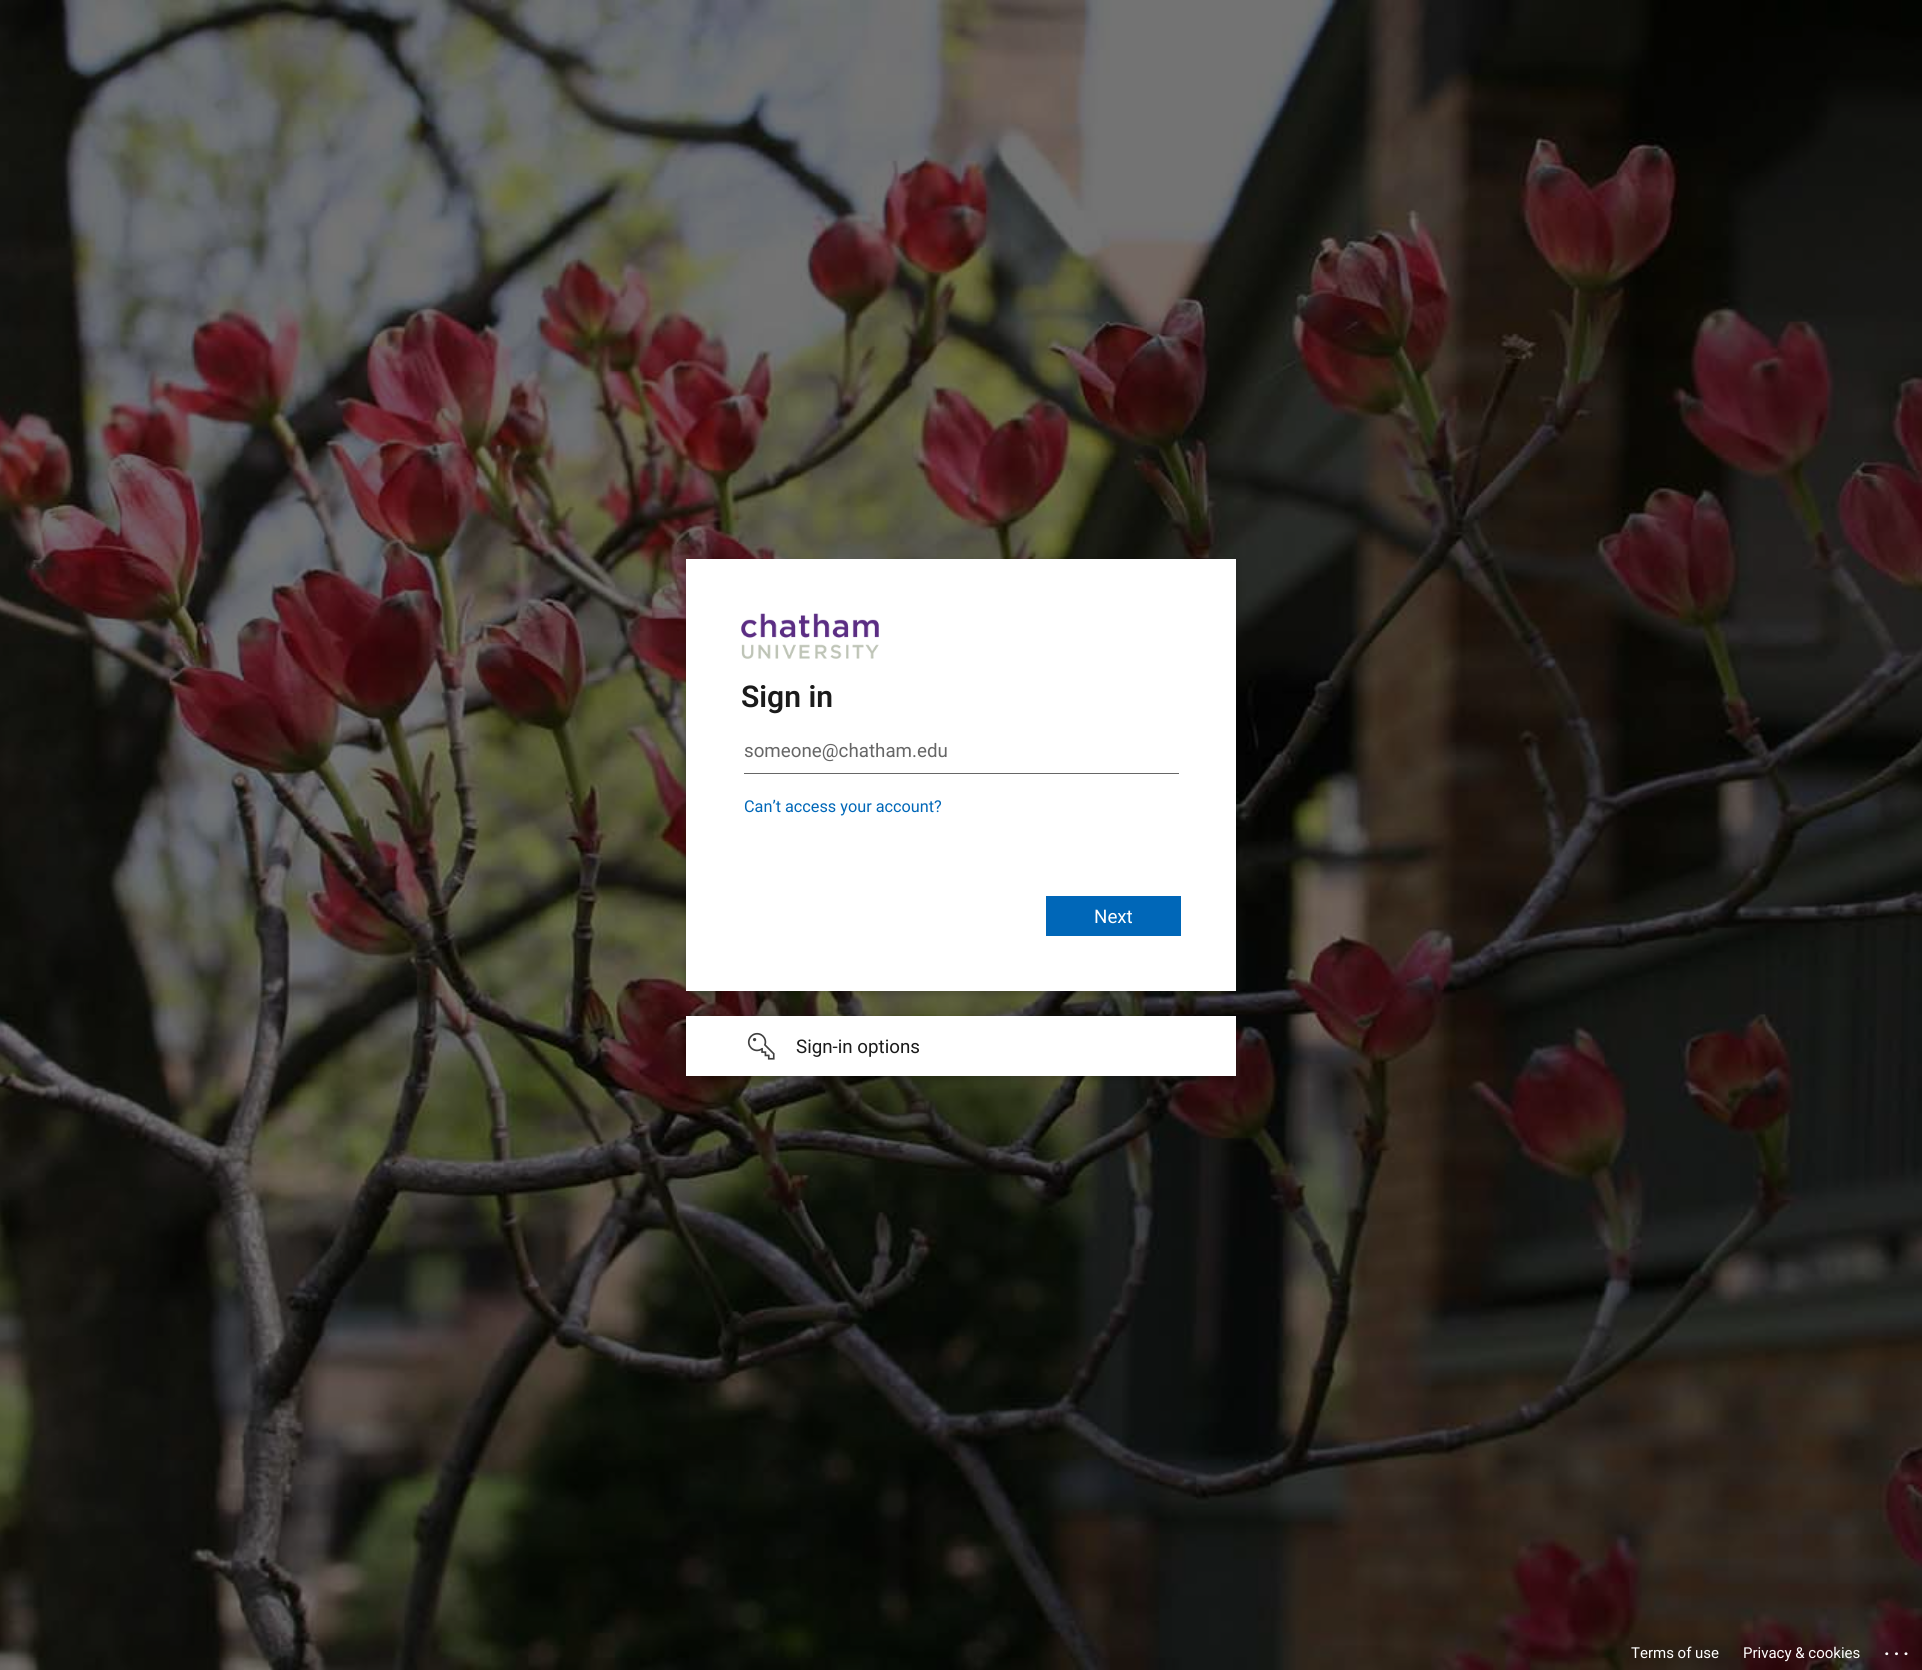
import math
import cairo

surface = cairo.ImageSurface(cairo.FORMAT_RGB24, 1922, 1670)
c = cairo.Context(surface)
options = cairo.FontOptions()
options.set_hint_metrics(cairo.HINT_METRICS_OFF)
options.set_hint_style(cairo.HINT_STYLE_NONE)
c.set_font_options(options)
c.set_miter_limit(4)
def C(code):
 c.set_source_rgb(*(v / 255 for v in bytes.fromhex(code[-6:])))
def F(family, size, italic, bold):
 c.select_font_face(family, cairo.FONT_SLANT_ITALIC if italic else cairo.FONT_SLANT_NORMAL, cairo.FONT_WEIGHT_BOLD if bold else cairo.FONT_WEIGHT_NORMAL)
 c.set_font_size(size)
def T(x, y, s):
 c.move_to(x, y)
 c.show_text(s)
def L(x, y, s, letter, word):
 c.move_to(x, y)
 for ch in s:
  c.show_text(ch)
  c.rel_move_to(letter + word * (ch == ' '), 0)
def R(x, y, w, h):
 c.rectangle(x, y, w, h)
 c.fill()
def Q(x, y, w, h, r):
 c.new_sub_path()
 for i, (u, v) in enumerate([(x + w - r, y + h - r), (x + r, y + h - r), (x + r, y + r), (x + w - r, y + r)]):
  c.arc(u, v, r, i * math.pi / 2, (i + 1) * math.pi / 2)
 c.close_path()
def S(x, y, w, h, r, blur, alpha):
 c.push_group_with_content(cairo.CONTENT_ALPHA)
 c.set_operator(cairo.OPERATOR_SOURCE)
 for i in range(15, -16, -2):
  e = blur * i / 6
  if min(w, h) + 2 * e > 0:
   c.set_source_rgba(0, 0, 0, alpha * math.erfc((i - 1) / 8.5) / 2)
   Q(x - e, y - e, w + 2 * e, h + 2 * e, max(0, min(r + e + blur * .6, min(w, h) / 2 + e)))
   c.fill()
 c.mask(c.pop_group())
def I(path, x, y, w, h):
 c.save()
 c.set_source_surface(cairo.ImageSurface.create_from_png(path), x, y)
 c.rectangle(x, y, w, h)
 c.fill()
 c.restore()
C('ffffff')
c.paint()
I('1.png',0,0,1922,1670)
C('000000')
S(686,561,550,433,0,4,.2)
C('ffffff')
R(686,559,550,432)
I('2.png',741,613,138,46)
F('Roboto SemiBold',30,0,0)
C('1b1b1b')
T(741,707,'Sign in')
C('666666')
R(744,773,435,1)
F('Roboto',18.75,0,0)
T(744,757,'someone@chatham.edu')
F('Roboto',16.25,0,0)
C('0067b8')
T(744,812,'Can’t access your account?')
R(1046,896,135,40)
F('Roboto',18.75,0,0)
C('ffffff')
T(1094,923,'Next')
C('000000')
S(686,1019,550,60,0,4,.2)
C('ffffff')
R(686,1016,550,60)
I('3.png',747,1032,28,28)
C('1b1b1b')
T(796,1053,'Sign-in options')
F('Roboto',15,0,0)
C('ffffff')
T(1631,1658,'Terms of use')
T(1743,1658,'Privacy & cookies')
F('Roboto SemiBold',20,0,0)
L(1884,1655,'...',4,0)
surface.write_to_png('o.png')
